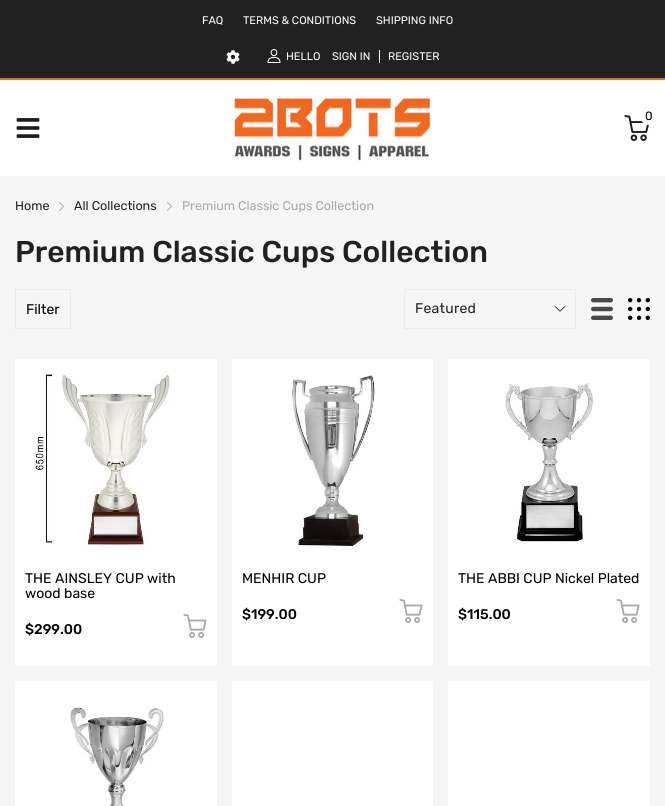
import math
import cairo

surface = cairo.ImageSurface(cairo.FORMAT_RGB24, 665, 806)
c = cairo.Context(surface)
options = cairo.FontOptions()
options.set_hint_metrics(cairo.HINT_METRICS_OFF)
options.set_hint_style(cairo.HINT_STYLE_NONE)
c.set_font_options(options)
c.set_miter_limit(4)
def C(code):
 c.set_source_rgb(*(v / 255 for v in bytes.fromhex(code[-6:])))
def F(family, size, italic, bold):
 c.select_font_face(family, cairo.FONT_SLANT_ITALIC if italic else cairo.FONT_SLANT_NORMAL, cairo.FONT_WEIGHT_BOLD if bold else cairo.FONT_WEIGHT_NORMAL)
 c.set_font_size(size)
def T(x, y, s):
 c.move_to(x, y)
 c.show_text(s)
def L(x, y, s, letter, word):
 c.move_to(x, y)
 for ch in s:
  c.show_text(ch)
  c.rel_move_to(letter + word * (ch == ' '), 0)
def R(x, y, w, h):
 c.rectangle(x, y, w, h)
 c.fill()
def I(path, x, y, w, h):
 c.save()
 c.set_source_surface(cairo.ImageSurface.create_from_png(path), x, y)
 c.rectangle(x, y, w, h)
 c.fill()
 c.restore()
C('f6f6f6')
c.paint()
C('212121')
R(0,0,665,78)
C('f26722')
R(0,78,665,2)
F('Rubik',11,0,0)
C('ffffff')
T(202,24,'FAQ')
T(243,24,'TERMS & CONDITIONS')
T(376,24,'SHIPPING INFO')
I('1.png',226,50,14,14)
I('2.png',267,49,14,14)
T(286,60,'HELLO')
T(332,60,'SIGN IN')
T(388,60,'REGISTER')
R(379,50,1,13)
R(0,80,665,96)
I('3.png',232,95,200,66)
I('4.png',624,115,25,26)
c.arc(649,116,9,0,2 * math.pi)
c.fill()
F('Rubik',12,0,0)
C('000000')
T(645,120,'0')
I('5.png',16,118,24,20)
F('Rubik',12.6,0,0)
C('212121')
T(15,210,'Home')
I('6.png',59,202,5,9)
T(74,210,'All Collections')
I('6.png',167,202,5,9)
C('a9a9a9')
T(182,210,'Premium Classic Cups Collection')
F('Rubik Medium',30,0,0)
C('212121')
T(15,262,'Premium Classic Cups Collection')
c.rectangle(15.5,289.5,55,39)
C('ebebeb')
c.set_line_width(1)
c.stroke()
F('Rubik',14,0,0)
C('000000')
T(26,314,'Filter')
c.rectangle(404.5,289.5,171,39)
C('ebebeb')
c.stroke()
C('212121')
L(415,313,'Featured',.25,0)
I('7.png',555,306,10,6)
I('8.png',591,298,22,22)
I('9.png',628,298,22,22)
C('ffffff')
R(15,359,202,307)
I('10.png',35,374,135,174)
C('000000')
T(25,583,'THE AINSLEY CUP with')
T(25,598,'wood base')
F('Rubik Medium',14,0,0)
T(25,634,'$299.00')
I('11.png',183,614,24,24)
C('ffffff')
R(232,359,201,307)
I('12.png',292,375,83,172)
F('Rubik',14,0,0)
C('000000')
T(242,583,'MENHIR CUP')
F('Rubik Medium',14,0,0)
T(242,619,'$199.00')
I('11.png',399,599,24,24)
C('ffffff')
R(448,359,202,307)
I('13.png',505,383,88,159)
F('Rubik',14,0,0)
C('000000')
T(458,583,'THE ABBI CUP Nickel Plated')
F('Rubik Medium',14,0,0)
T(458,619,'$115.00')
I('11.png',616,599,24,24)
C('ffffff')
R(15,681,202,125)
I('14.png',70,705,99,101)
R(232,681,201,125)
R(448,681,202,125)
surface.write_to_png('o.png')
